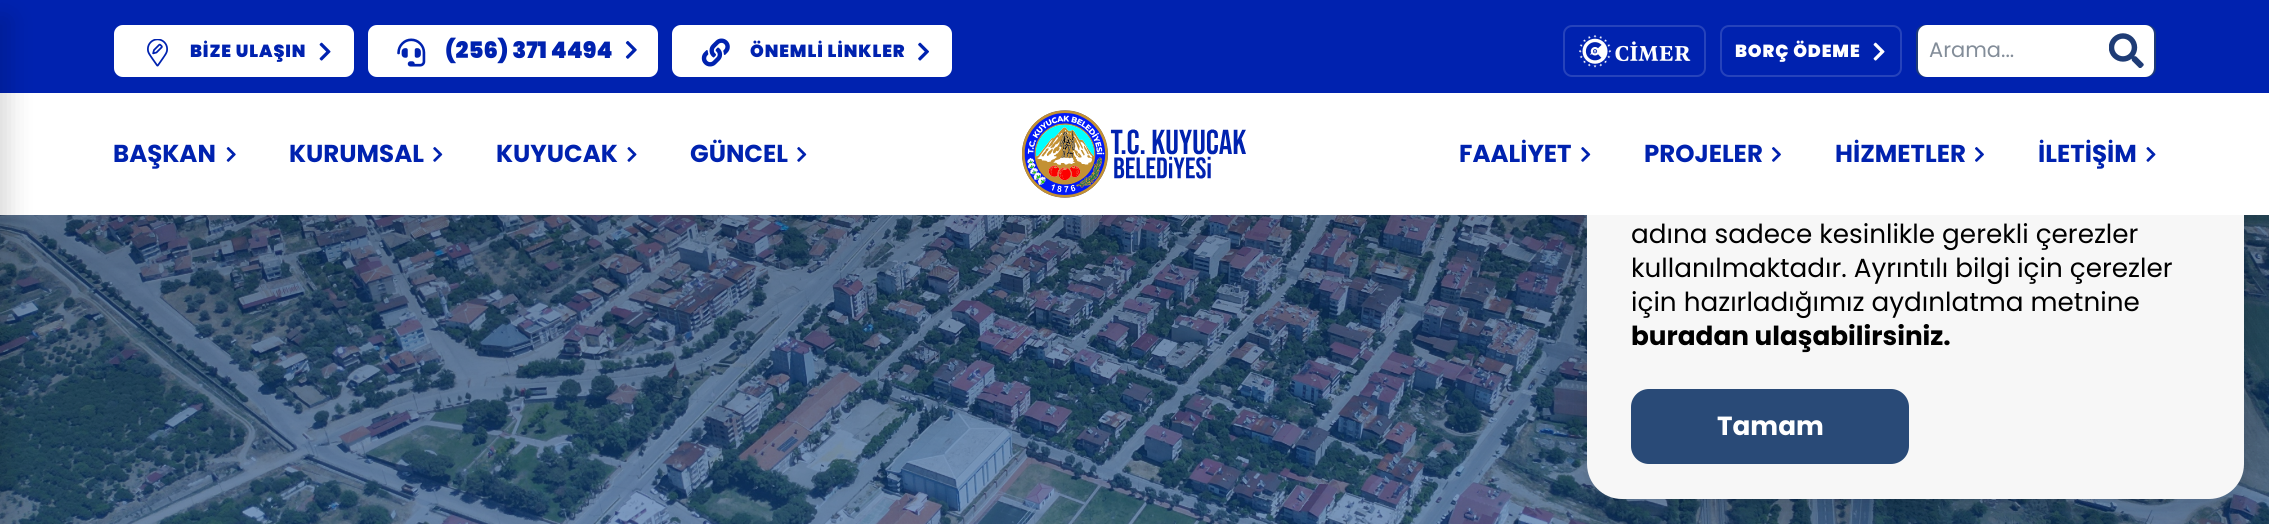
import math
import cairo

surface = cairo.ImageSurface(cairo.FORMAT_RGB24, 2269, 524)
c = cairo.Context(surface)
options = cairo.FontOptions()
options.set_hint_metrics(cairo.HINT_METRICS_OFF)
options.set_hint_style(cairo.HINT_STYLE_NONE)
c.set_font_options(options)
c.set_miter_limit(4)
def C(code):
 c.set_source_rgb(*(v / 255 for v in bytes.fromhex(code[-6:])))
def F(family, size, italic, bold):
 c.select_font_face(family, cairo.FONT_SLANT_ITALIC if italic else cairo.FONT_SLANT_NORMAL, cairo.FONT_WEIGHT_BOLD if bold else cairo.FONT_WEIGHT_NORMAL)
 c.set_font_size(size)
def T(x, y, s):
 c.move_to(x, y)
 c.show_text(s)
def L(x, y, s, letter, word):
 c.move_to(x, y)
 for ch in s:
  c.show_text(ch)
  c.rel_move_to(letter + word * (ch == ' '), 0)
def R(x, y, w, h):
 c.rectangle(x, y, w, h)
 c.fill()
def Q(x, y, w, h, r):
 c.new_sub_path()
 for i, (u, v) in enumerate([(x + w - r, y + h - r), (x + r, y + h - r), (x + r, y + r), (x + w - r, y + r)]):
  c.arc(u, v, r, i * math.pi / 2, (i + 1) * math.pi / 2)
 c.close_path()
def S(x, y, w, h, r, blur, alpha):
 c.push_group_with_content(cairo.CONTENT_ALPHA)
 c.set_operator(cairo.OPERATOR_SOURCE)
 for i in range(15, -16, -2):
  e = blur * i / 6
  if min(w, h) + 2 * e > 0:
   c.set_source_rgba(0, 0, 0, alpha * math.erfc((i - 1) / 8.5) / 2)
   Q(x - e, y - e, w + 2 * e, h + 2 * e, max(0, min(r + e + blur * .6, min(w, h) / 2 + e)))
   c.fill()
 c.mask(c.pop_group())
def I(path, x, y, w, h):
 c.save()
 c.set_source_surface(cairo.ImageSurface.create_from_png(path), x, y)
 c.rectangle(x, y, w, h)
 c.fill()
 c.restore()
C('1553a4')
c.paint()
I('15.png',0,215,2269,309)
gradient = cairo.LinearGradient(1135,0,1135,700)
gradient.add_color_stop_rgba(0,0,0,0,.35)
gradient.add_color_stop_rgba(1,0,0,0,0)
c.set_source(gradient)
R(0,215,2269,309)
C('020203')
S(1587,86,657,430,35,26,.2)
C('f7f7f7')
Q(1587,68,657,431,35)
c.fill()
C('0022af')
R(0,0,2269,93)
C('ffffff')
R(0,93,2269,122)
C('000000')
S(-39,18,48,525,0,13,.15)
C('ffffff')
Q(114,25,240,52,9)
c.fill()
Q(115,26,238,50,8)
c.set_source_rgba(1,1,1,0.15)
c.stroke()
I('1.png',147,39,21,28)
F('Poppins Black',17.5,0,0)
C('0022af')
L(190,57,'BİZE ULAŞIN',.9,0)
I('2.png',319,42,12,19)
C('ffffff')
Q(368,25,290,52,9)
c.fill()
Q(369,26,288,50,8)
c.set_source_rgba(1,1,1,0.15)
c.stroke()
I('3.png',397,38,29,29)
F('Poppins Black',22.75,0,0)
C('0022af')
T(445,58,'(256) 371 4494')
I('4.png',625,40,12,19)
C('ffffff')
Q(672,25,280,52,9)
c.fill()
Q(673,26,278,50,8)
c.set_source_rgba(1,1,1,0.15)
c.stroke()
I('5.png',701,38,29,29)
F('Poppins Black',17.5,0,0)
C('0022af')
L(750,57,'ÖNEMLİ LİNKLER',.9,0)
I('6.png',918,42,11,19)
Q(1564,26,141,50,8)
C('2643bb')
c.stroke()
I('7.png',1579,35,112,33)
Q(1721,26,180,50,8)
c.stroke()
C('ffffff')
L(1735,57,'BORÇ ÖDEME',.9,0)
I('8.png',1873,42,12,19)
Q(1917,26,238,50,8)
C('1f3c75')
c.stroke()
C('ffffff')
Q(1918,25,236,52,9)
c.fill()
I('9.png',2109,33,35,35)
F('Poppins',21,0,0)
C('838d99')
T(1929,57,'Arama...')
F('Poppins',24.5,0,1)
C('0022af')
T(113,162,'BAŞKAN')
I('10.png',226,147,10,15)
T(289,162,'KURUMSAL')
I('11.png',433,147,10,15)
T(496,162,'KUYUCAK')
I('12.png',627,147,10,15)
T(690,162,'GÜNCEL')
I('11.png',797,147,10,15)
I('13.png',1022,110,224,88)
T(1459,162,'FAALİYET')
I('11.png',1581,147,10,15)
T(1644,162,'PROJELER')
I('14.png',1772,147,9,15)
T(1835,162,'HİZMETLER')
I('14.png',1975,147,9,15)
T(2038,162,'İLETİŞİM')
I('12.png',2146,147,10,15)
F('Poppins',26.25,0,0)
C('000000')
T(1631,243,'adına sadece kesinlikle gerekli çerezler')
T(1631,277,'kullanılmaktadır. Ayrıntılı bilgi için çerezler')
T(1631,311,'için hazırladığımız aydınlatma metnine')
F('Poppins',26.25,0,1)
T(1631,345,'buradan ulaşabilirsiniz.')
C('294a77')
Q(1631,389,278,75,18)
c.fill()
C('ffffff')
T(1717,435,'Tamam')
surface.write_to_png('o.png')
